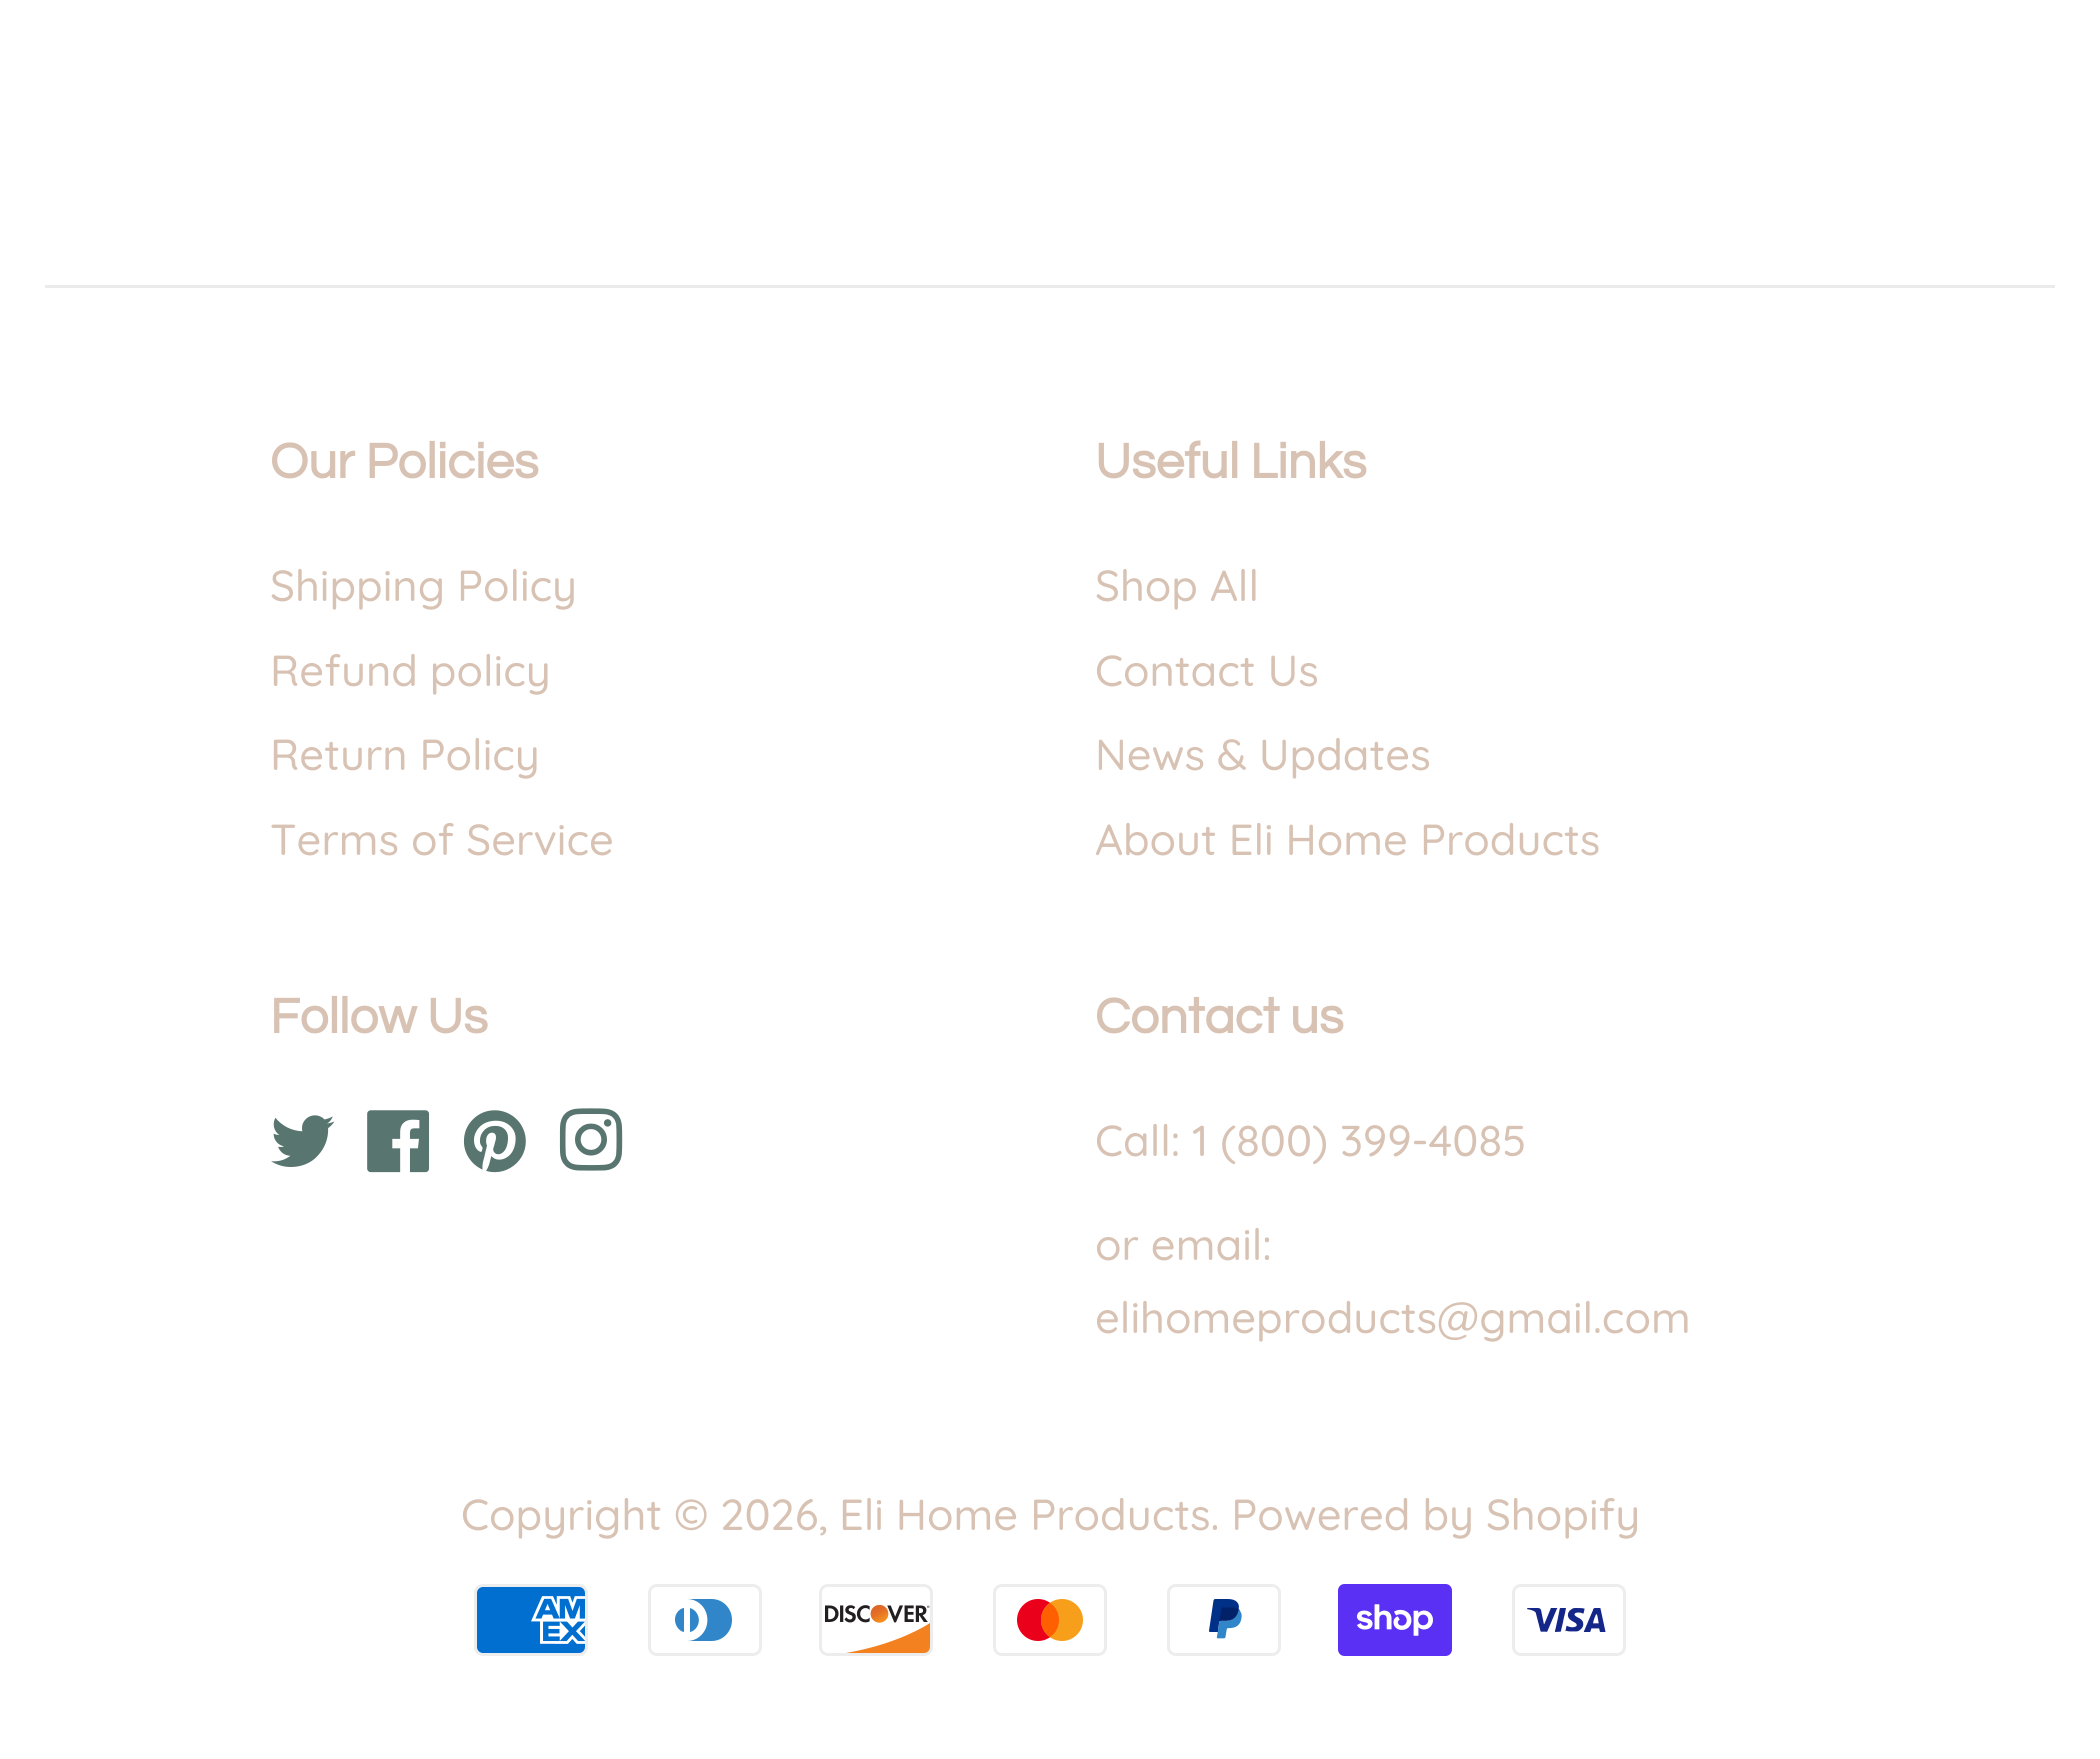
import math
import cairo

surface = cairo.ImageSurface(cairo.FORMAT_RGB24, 2100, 1759)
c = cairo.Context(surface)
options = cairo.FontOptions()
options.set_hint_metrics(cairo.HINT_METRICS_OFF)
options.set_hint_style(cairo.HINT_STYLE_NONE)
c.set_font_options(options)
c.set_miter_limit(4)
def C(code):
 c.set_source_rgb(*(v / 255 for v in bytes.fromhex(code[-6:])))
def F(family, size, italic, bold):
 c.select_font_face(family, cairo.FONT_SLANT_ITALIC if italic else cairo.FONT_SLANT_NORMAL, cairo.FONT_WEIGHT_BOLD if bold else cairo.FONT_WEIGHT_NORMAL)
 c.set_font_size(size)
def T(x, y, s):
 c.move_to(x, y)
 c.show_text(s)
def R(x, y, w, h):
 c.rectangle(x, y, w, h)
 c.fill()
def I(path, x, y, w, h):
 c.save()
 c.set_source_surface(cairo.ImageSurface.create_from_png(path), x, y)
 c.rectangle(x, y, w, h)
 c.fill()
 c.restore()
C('ffffff')
c.paint()
C('ebebeb')
R(45,285,2010,3)
F('Questrial',51,0,1)
C('d8c2b3')
T(270,478,'Our Policies')
F('Quicksand Medium',43.4,0,0)
T(270,601,'Shipping Policy')
T(270,686,'Refund policy')
T(270,770,'Return Policy')
T(270,855,'Terms of Service')
F('Questrial',51,0,1)
T(1095,478,'Useful Links')
F('Quicksand Medium',43.4,0,0)
T(1095,601,'Shop All')
T(1095,686,'Contact Us')
T(1095,770,'News & Updates')
T(1095,855,'About Eli Home Products')
F('Questrial',51,0,1)
T(270,1033,'Follow Us')
I('1.png',271,1115,64,52)
I('2.png',367,1110,63,63)
I('3.png',463,1110,63,63)
I('4.png',559,1108,64,63)
T(1095,1033,'Contact us')
F('Quicksand Medium',43.4,0,0)
T(1095,1156,'Call: 1 (800) 399-4085')
T(1095,1260,'or email:')
T(1095,1333,'elihomeproducts@gmail.com')
T(461,1530,'Copyright © 2026,')
T(839,1530,'Eli Home Products. Powered by Shopify')
I('5.png',474,1584,114,72)
I('6.png',648,1584,114,72)
I('7.png',819,1584,114,72)
I('8.png',993,1584,114,72)
I('9.png',1167,1584,114,72)
I('10.png',1338,1584,114,72)
I('11.png',1512,1584,114,72)
surface.write_to_png('o.png')
